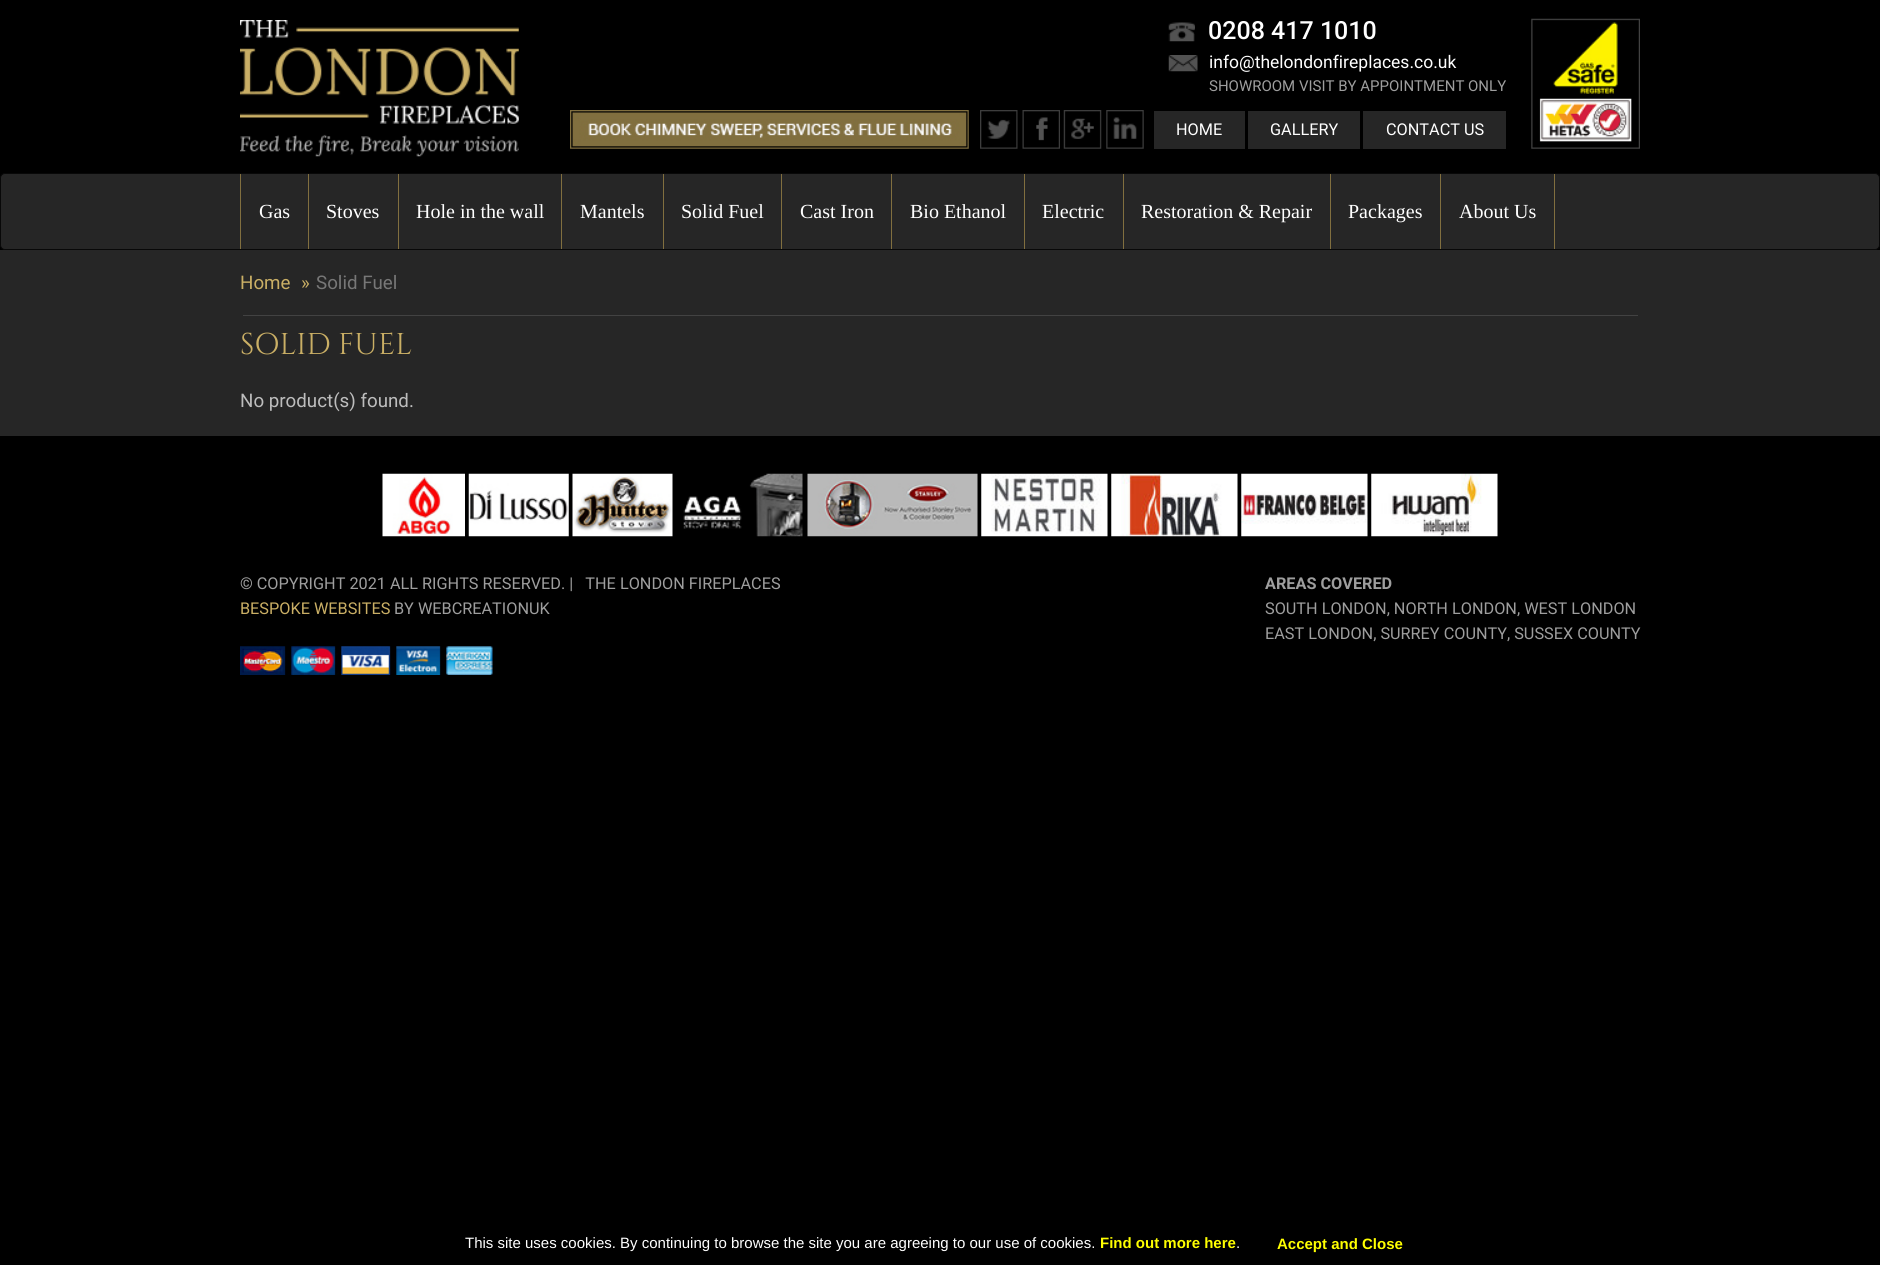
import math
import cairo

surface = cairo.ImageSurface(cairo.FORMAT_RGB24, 1880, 1265)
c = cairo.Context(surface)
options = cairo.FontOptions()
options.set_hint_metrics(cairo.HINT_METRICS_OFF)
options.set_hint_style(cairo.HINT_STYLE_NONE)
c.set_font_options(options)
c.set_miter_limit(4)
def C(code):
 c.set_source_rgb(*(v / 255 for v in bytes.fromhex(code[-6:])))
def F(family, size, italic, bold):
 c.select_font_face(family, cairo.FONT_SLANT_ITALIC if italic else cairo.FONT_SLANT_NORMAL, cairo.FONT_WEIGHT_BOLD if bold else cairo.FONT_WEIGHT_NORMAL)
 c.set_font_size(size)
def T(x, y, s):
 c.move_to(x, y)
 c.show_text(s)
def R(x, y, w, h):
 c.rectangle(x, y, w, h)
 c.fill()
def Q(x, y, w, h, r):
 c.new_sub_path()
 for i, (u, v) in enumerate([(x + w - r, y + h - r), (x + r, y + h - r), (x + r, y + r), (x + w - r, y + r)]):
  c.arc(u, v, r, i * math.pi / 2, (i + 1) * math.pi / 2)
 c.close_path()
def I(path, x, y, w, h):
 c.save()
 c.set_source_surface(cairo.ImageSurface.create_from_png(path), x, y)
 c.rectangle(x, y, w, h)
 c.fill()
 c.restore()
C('000000')
c.paint()
I('1.png',240,20,279,137)
I('2.png',1168,22,27,20)
F('Roboto Medium',25,0,0)
C('ffffff')
T(1208,39,'0208 417 1010')
I('3.png',1168,55,30,17)
F('Roboto',17.5,0,0)
T(1209,68,'info@thelondonfireplaces.co.uk')
F('Roboto',15,0,0)
C('9e9e9e')
T(1209,91,'SHOWROOM VISIT BY APPOINTMENT ONLY')
I('4.png',570,110,399,39)
I('5.png',980,110,38,39)
I('6.png',1022,110,38,39)
I('7.png',1063,110,39,39)
I('8.png',1106,110,38,39)
C('262626')
R(1154,111,91,38)
F('Roboto',16.25,0,0)
C('ffffff')
T(1176,135,'HOME')
C('262626')
R(1248,111,112,38)
C('ffffff')
T(1270,135,'GALLERY')
C('262626')
R(1363,111,143,38)
C('ffffff')
T(1386,135,'CONTACT US')
I('9.png',1531,18,109,131)
C('262626')
Q(.5,173.5,1879,76,4.5)
c.fill_preserve()
C('080808')
c.set_line_width(1)
c.stroke()
C('816f3f')
R(240,174,1,75)
F('Liberation Serif',20,0,0)
C('ffffff')
T(259,218,'Gas')
C('816f3f')
R(308,174,1,75)
C('ffffff')
T(326,218,'Stoves')
C('816f3f')
R(398,174,1,75)
C('ffffff')
T(416,218,'Hole in the wall')
C('816f3f')
R(561,174,1,75)
C('ffffff')
T(580,218,'Mantels')
C('816f3f')
R(663,174,1,75)
C('ffffff')
T(681,218,'Solid Fuel')
C('816f3f')
R(781,174,1,75)
C('ffffff')
T(800,218,'Cast Iron')
C('816f3f')
R(891,174,1,75)
C('ffffff')
T(910,218,'Bio Ethanol')
C('816f3f')
R(1024,174,1,75)
C('ffffff')
T(1042,218,'Electric')
C('816f3f')
R(1123,174,1,75)
C('ffffff')
T(1141,218,'Restoration & Repair')
C('816f3f')
R(1330,174,1,75)
C('ffffff')
T(1348,218,'Packages')
C('816f3f')
R(1554,174,1,75)
R(1440,174,1,75)
C('ffffff')
T(1459,218,'About Us')
C('262626')
R(0,250,1880,186)
C('424242')
R(243,315,1395,1)
F('Roboto',18.75,0,0)
C('caaf65')
T(240,289,'Home')
T(301,289,'»')
C('777777')
T(316,289,'Solid Fuel')
F('Cinzel',30,0,0)
C('caaf65')
T(240,354,'SOLID FUEL')
F('Roboto',18.75,0,0)
C('bdbdbd')
T(240,407,'No product(s) found.')
I('10.png',382,473,83,64)
I('11.png',468,473,101,64)
I('12.png',572,473,101,64)
I('13.png',683,473,120,64)
I('14.png',807,473,171,64)
I('15.png',981,473,127,64)
I('16.png',1111,473,127,64)
I('17.png',1241,473,127,64)
I('18.png',1371,473,127,64)
F('Roboto',16.25,0,0)
C('9e9e9e')
T(240,589,'© COPYRIGHT 2021 ALL RIGHTS RESERVED. |   THE LONDON FIREPLACES')
C('caaf65')
T(240,614,'BESPOKE WEBSITES')
C('9e9e9e')
T(394,614,'BY WEBCREATIONUK')
I('19.png',240,646,253,29)
F('Roboto',16.25,0,1)
T(1265,589,'AREAS COVERED')
F('Roboto',16.25,0,0)
T(1265,614,'SOUTH LONDON, NORTH LONDON, WEST LONDON')
T(1265,639,'EAST LONDON, SURREY COUNTY, SUSSEX COUNTY')
F('Liberation Sans',15,0,0)
C('ffffff')
T(465,1248,'This site uses cookies. By continuing to browse the site you are agreeing to our use of cookies.')
F('Liberation Sans',15,0,1)
C('ffff00')
T(1100,1248,'Find out more here')
F('Liberation Sans',15,0,0)
C('ffffff')
T(1236,1248,'.')
F('Liberation Sans',15,0,1)
C('ffff00')
T(1277,1249,'Accept and Close')
surface.write_to_png('o.png')
